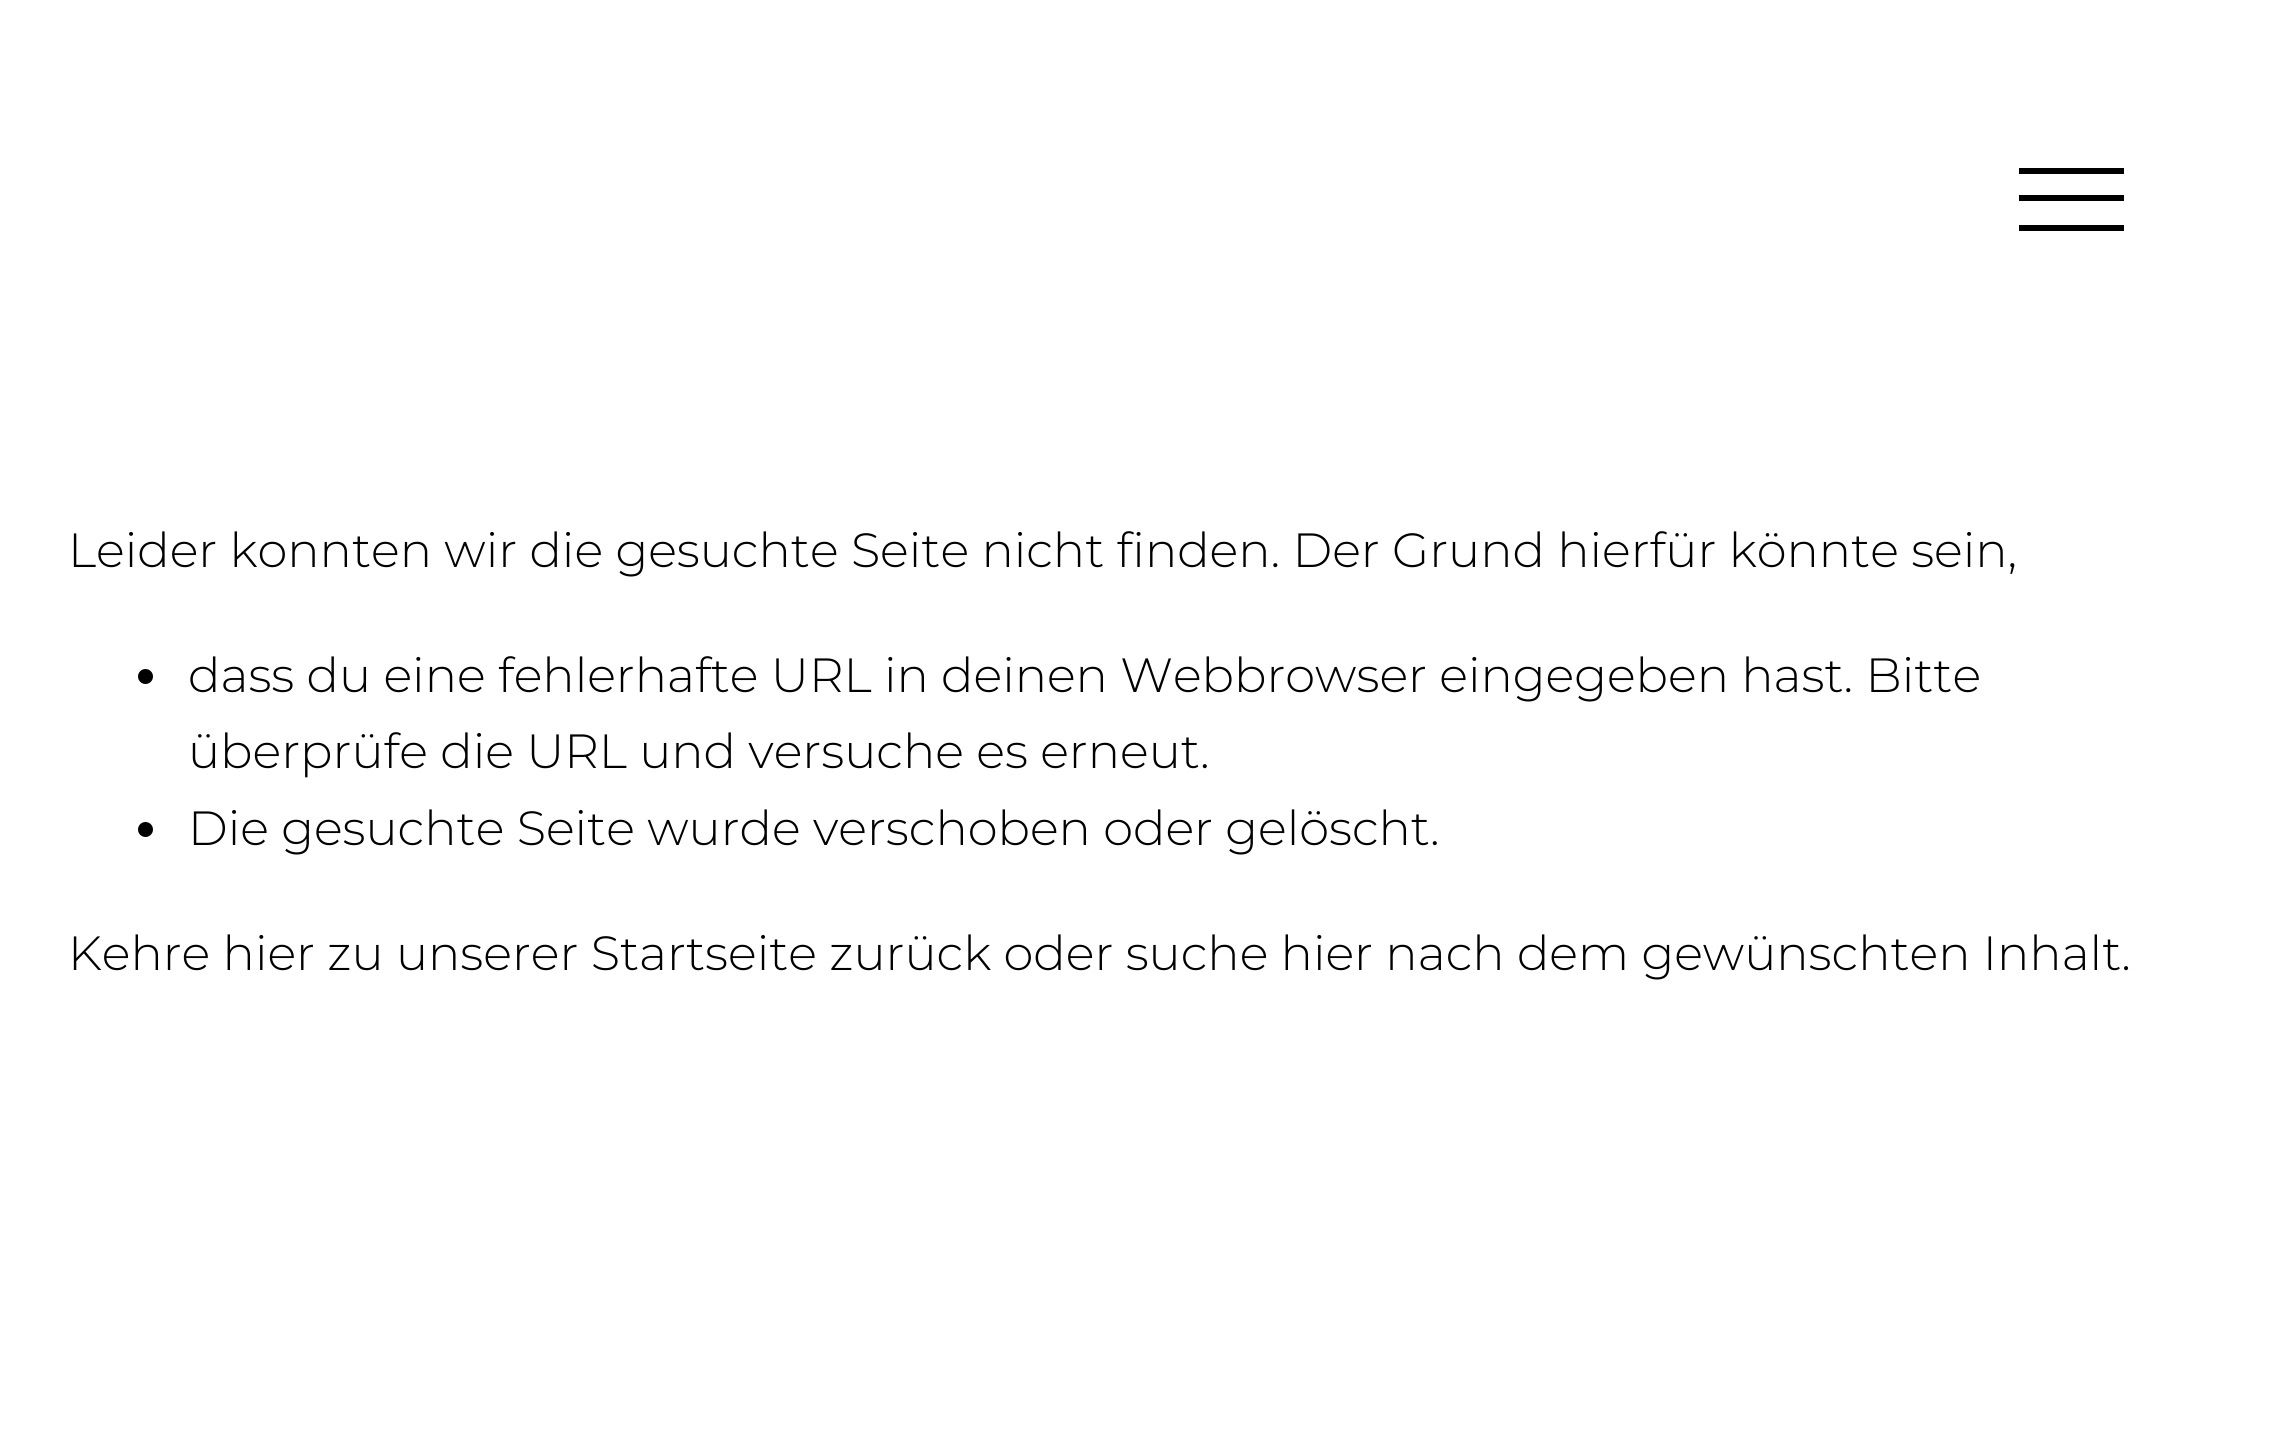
import math
import cairo

surface = cairo.ImageSurface(cairo.FORMAT_RGB24, 2280, 1450)
c = cairo.Context(surface)
options = cairo.FontOptions()
options.set_hint_metrics(cairo.HINT_METRICS_OFF)
options.set_hint_style(cairo.HINT_STYLE_NONE)
c.set_font_options(options)
c.set_miter_limit(4)
def C(code):
 c.set_source_rgb(*(v / 255 for v in bytes.fromhex(code[-6:])))
def F(family, size, italic, bold):
 c.select_font_face(family, cairo.FONT_SLANT_ITALIC if italic else cairo.FONT_SLANT_NORMAL, cairo.FONT_WEIGHT_BOLD if bold else cairo.FONT_WEIGHT_NORMAL)
 c.set_font_size(size)
def T(x, y, s):
 c.move_to(x, y)
 c.show_text(s)
def R(x, y, w, h):
 c.rectangle(x, y, w, h)
 c.fill()
C('ffffff')
c.paint()
C('000000')
R(2019,168,105,6)
R(2019,195,105,6)
R(2019,225,105,6)
F('Montserrat Light',48,0,0)
T(68,567,'Leider konnten wir die gesuchte Seite nicht finden. Der Grund hierfür könnte sein,')
c.new_path()
c.arc(145.5,676.5,7.5,0,2 * math.pi)
c.fill()
T(188,692,'dass du eine fehlerhafte URL in deinen Webbrowser eingegeben hast. Bitte')
T(188,768,'überprüfe die URL und versuche es erneut.')
c.new_path()
c.arc(145.5,829.5,7.5,0,2 * math.pi)
c.fill()
T(188,845,'Die gesuchte Seite wurde verschoben oder gelöscht.')
T(68,970,'Kehre hier zu unserer Startseite zurück oder suche hier nach dem gewünschten Inhalt.')
surface.write_to_png('o.png')
